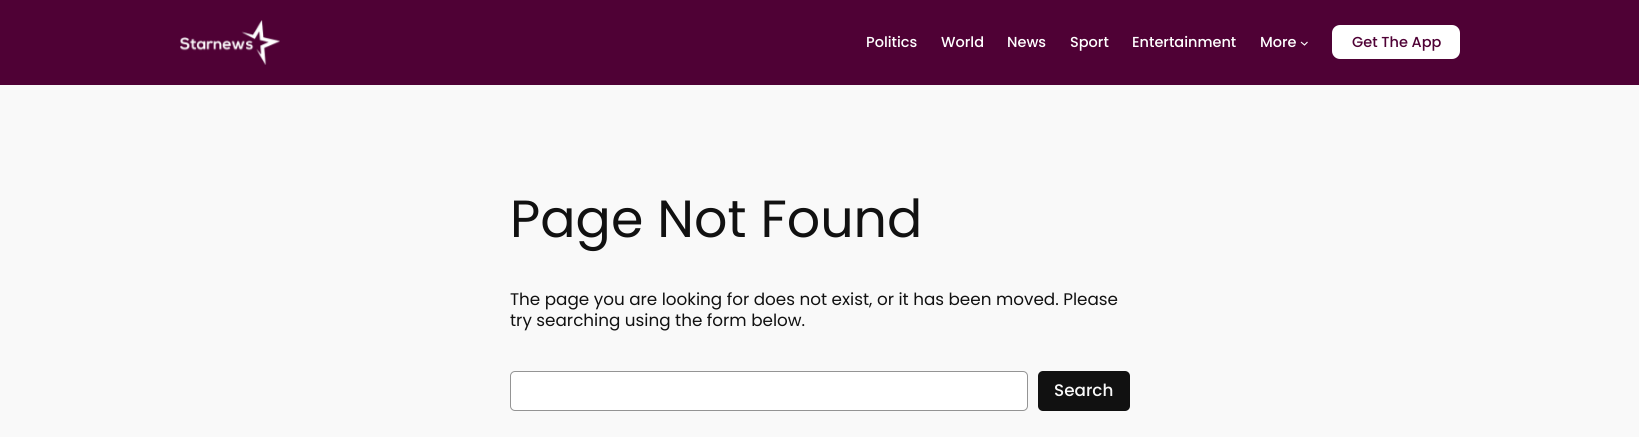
import math
import cairo

surface = cairo.ImageSurface(cairo.FORMAT_RGB24, 1639, 437)
c = cairo.Context(surface)
options = cairo.FontOptions()
options.set_hint_metrics(cairo.HINT_METRICS_OFF)
options.set_hint_style(cairo.HINT_STYLE_NONE)
c.set_font_options(options)
c.set_miter_limit(4)
def C(code):
 c.set_source_rgb(*(v / 255 for v in bytes.fromhex(code[-6:])))
def F(family, size, italic, bold):
 c.select_font_face(family, cairo.FONT_SLANT_ITALIC if italic else cairo.FONT_SLANT_NORMAL, cairo.FONT_WEIGHT_BOLD if bold else cairo.FONT_WEIGHT_NORMAL)
 c.set_font_size(size)
def T(x, y, s):
 c.move_to(x, y)
 c.show_text(s)
def R(x, y, w, h):
 c.rectangle(x, y, w, h)
 c.fill()
def Q(x, y, w, h, r):
 c.new_sub_path()
 for i, (u, v) in enumerate([(x + w - r, y + h - r), (x + r, y + h - r), (x + r, y + r), (x + w - r, y + r)]):
  c.arc(u, v, r, i * math.pi / 2, (i + 1) * math.pi / 2)
 c.close_path()
def I(path, x, y, w, h):
 c.save()
 c.set_source_surface(cairo.ImageSurface.create_from_png(path), x, y)
 c.rectangle(x, y, w, h)
 c.fill()
 c.restore()
C('f9f9f9')
c.paint()
C('4f0135')
R(0,0,1639,85)
I('1.png',180,20,100,45)
F('Poppins Medium',14.5,0,0)
C('ffffff')
T(866,47,'Politics')
T(941,47,'World')
T(1007,47,'News')
T(1070,47,'Sport')
T(1132,47,'Entertainment')
T(1260,47,'More')
c.new_path()
c.move_to(1301,42)
c.line_to(1304.5,45)
c.line_to(1307.5,42)
c.set_line_width(1.1)
c.stroke()
Q(1332,25,128,34,8)
c.fill()
C('4f0135')
T(1352,47,'Get The App')
F('Poppins',52.25,0,0)
C('111111')
T(510,237,'Page Not Found')
F('Poppins',16.8,0,0)
T(510,305,'The page you are looking for does not exist, or it has been moved. Please')
T(510,326,'try searching using the form below.')
C('ffffff')
Q(510.5,371.5,517,39,4.5)
c.fill_preserve()
C('949494')
c.set_line_width(1)
c.stroke()
C('111111')
Q(1038,371,92,40,5)
c.fill()
F('Poppins Medium',16.8,0,0)
C('f9f9f9')
T(1054,396,'Search')
surface.write_to_png('o.png')
